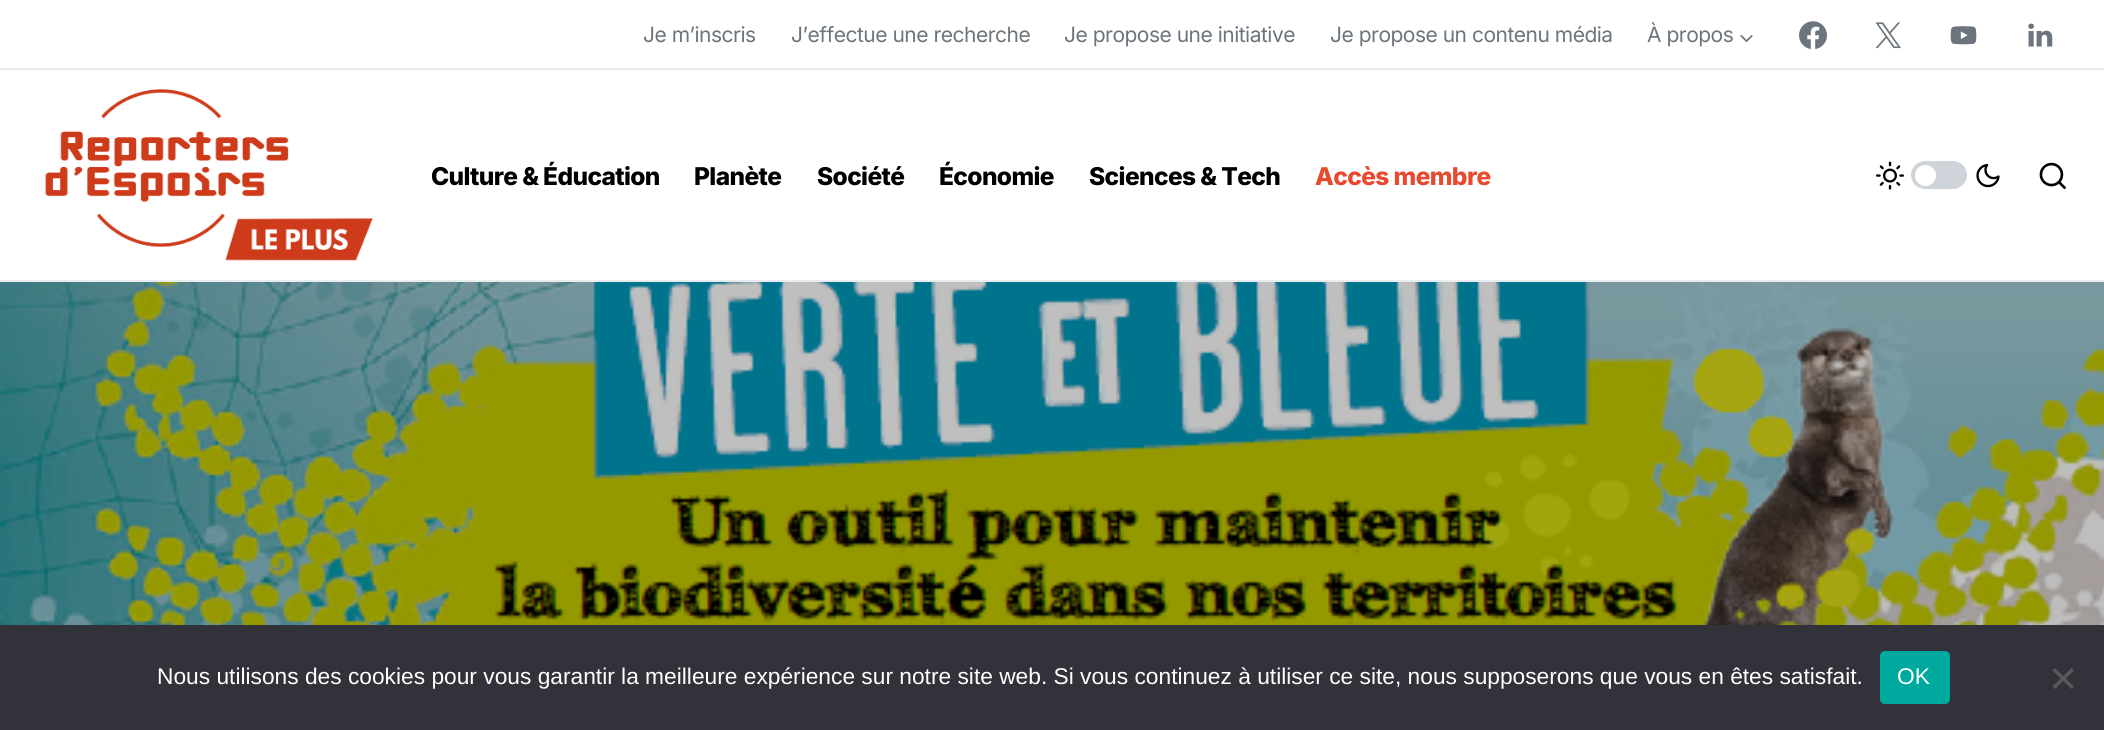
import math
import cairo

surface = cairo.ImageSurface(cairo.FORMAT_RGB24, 2104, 730)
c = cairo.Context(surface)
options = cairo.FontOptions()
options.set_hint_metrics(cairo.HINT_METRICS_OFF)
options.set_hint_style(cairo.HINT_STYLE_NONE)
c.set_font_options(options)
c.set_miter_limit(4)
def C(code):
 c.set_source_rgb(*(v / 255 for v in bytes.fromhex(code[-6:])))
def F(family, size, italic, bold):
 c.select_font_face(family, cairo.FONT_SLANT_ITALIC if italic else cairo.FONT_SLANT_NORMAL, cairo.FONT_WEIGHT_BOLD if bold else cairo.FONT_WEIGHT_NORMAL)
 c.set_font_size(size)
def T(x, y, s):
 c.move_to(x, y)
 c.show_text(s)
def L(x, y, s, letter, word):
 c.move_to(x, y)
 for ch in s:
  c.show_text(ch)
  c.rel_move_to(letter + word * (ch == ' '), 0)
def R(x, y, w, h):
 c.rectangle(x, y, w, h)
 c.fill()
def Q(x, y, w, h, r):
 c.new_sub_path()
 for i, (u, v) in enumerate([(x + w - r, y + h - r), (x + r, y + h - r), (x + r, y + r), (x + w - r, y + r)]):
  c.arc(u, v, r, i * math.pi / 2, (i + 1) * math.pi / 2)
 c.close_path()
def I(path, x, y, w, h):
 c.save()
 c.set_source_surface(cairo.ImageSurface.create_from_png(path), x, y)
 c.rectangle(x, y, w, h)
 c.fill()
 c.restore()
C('ffffff')
c.paint()
C('e9ecef')
R(0,68,2104,2)
F('Inter',21,0,0)
C('6c757d')
L(643,42,'Je m’inscris',-.5,0)
L(791,42,'J’effectue une recherche',-.5,0)
L(1064,42,'Je propose une initiative',-.5,0)
L(1330,42,'Je propose un contenu média',-.5,0)
L(1647,42,'À propos',-.5,0)
I('1.png',1740,35,13,7)
I('2.png',1799,21,28,28)
I('3.png',1875,22,26,27)
I('4.png',1950,26,27,19)
I('5.png',2028,23,25,24)
C('e9ecef')
R(0,280,2104,2)
I('6.png',45,89,328,172)
F('Inter ExtraBold',24.5,0,0)
C('000000')
L(431,185,'Culture & Éducation',-.6,0)
L(694,185,'Planète',-.6,0)
L(817,185,'Société',-.6,0)
L(939,185,'Économie',-.6,0)
L(1089,185,'Sciences & Tech',-.6,0)
C('e9492e')
L(1315,185,'Accès membre',-.6,0)
I('7.png',1876,161,28,29)
C('ced4da')
Q(1911,161,56,28,14)
c.fill()
C('ffffff')
c.arc(1925.5,175.5,10.5,0,2 * math.pi)
c.fill()
I('8.png',1976,163,24,25)
I('9.png',2039,162,27,27)
I('10.png',0,282,2104,343)
C('32323a')
R(0,625,2104,105)
F('Liberation Sans',22.75,0,0)
C('ffffff')
T(157,684,'Nous utilisons des cookies pour vous garantir la meilleure expérience sur notre site web. Si vous continuez à utiliser ce site, nous supposerons que vous en êtes satisfait.')
C('00a99d')
Q(1880,651,70,53,5)
c.fill()
C('ffffff')
T(1897,684,'OK')
C('59595d')
c.new_path()
c.move_to(2071.5,668)
c.line_to(2074,670.5)
c.line_to(2055,689)
c.line_to(2052.5,686.5)
c.close_path()
c.fill()
c.new_path()
c.move_to(2052.5,670.5)
c.line_to(2055,668)
c.line_to(2074,686.5)
c.line_to(2071.5,689)
c.close_path()
c.fill()
surface.write_to_png('o.png')
